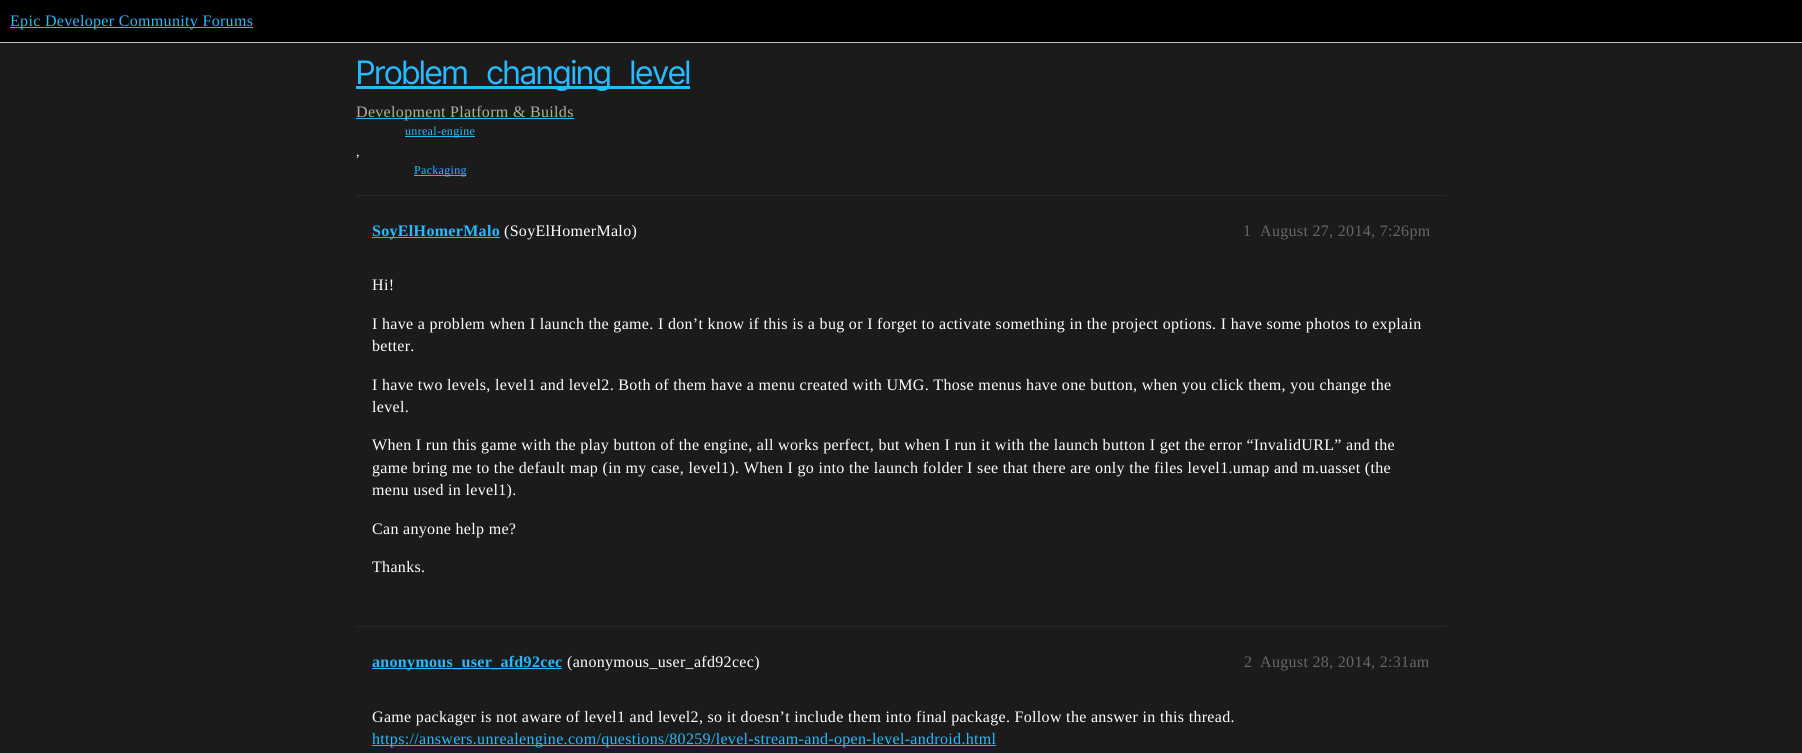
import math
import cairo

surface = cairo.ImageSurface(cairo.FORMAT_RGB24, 1802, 753)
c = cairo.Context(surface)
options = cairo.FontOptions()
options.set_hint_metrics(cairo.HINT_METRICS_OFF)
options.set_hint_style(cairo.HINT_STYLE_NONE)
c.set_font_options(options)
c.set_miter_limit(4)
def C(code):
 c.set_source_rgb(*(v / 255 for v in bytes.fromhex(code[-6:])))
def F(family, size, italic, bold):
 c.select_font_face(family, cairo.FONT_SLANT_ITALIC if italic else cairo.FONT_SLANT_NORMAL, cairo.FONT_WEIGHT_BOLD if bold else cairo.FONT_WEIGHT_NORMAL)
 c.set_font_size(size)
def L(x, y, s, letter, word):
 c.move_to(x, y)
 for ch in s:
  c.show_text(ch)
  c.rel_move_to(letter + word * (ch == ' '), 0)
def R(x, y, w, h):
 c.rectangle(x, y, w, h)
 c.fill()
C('1b1b1b')
c.paint()
C('000000')
R(0,0,1802,42)
C('bdbdbd')
R(0,42,1802,1)
C('26bbff')
R(10,27,243,1)
F('Liberation Serif',16,0,0)
L(10,26,'Epic Developer Community Forums',.32,0)
R(356,86,334,3)
F('Inter Tight',32.25,0,0)
L(356,84,'Problem changing level',-.5,12)
R(356,118,218,1)
F('Liberation Serif',16,0,0)
C('afafb0')
L(356,117,'Development',.32,0)
L(450,117,'Platform & Builds',.32,0)
C('26bbff')
R(405,136,70,1)
F('Liberation Serif',12,0,0)
L(405,135,'unreal-engine',.32,0)
F('Liberation Serif',14,0,0)
C('ffffff')
L(356,156,',',.32,0)
C('26bbff')
R(414,175,52,1)
F('Liberation Serif',12,0,0)
L(414,174,'Packaging',.32,0)
C('28282c')
R(356,195,1090,1)
C('26bbff')
R(372,237,128,1)
F('Liberation Serif',16,0,1)
L(372,236,'SoyElHomerMalo',.32,0)
F('Liberation Serif',16,0,0)
C('ffffff')
L(504,236,'(SoyElHomerMalo)',.32,0)
C('666666')
L(1243,236,'1',.32,0)
L(1260,236,'August 27, 2014, 7:26pm',.32,0)
C('ffffff')
L(372,290,'Hi!',.32,0)
L(372,329,'I have a problem when I launch the game. I don’t know if this is a bug or I forget to activate something in the project options. I have some photos to explain',.32,0)
L(372,351,'better.',.32,0)
L(372,390,'I have two levels, level1 and level2. Both of them have a menu created with UMG. Those menus have one button, when you click them, you change the',.32,0)
L(372,412,'level.',.32,0)
L(372,450,'When I run this game with the play button of the engine, all works perfect, but when I run it with the launch button I get the error “InvalidURL” and the',.32,0)
L(372,473,'game bring me to the default map (in my case, level1). When I go into the launch folder I see that there are only the files level1.umap and m.uasset (the',.32,0)
L(372,495,'menu used in level1).',.32,0)
L(372,534,'Can anyone help me?',.32,0)
L(372,572,'Thanks.',.32,0)
C('28282c')
R(356,626,1090,1)
C('26bbff')
R(372,668,190,1)
F('Liberation Serif',16,0,1)
L(372,667,'anonymous_user_afd92cec',.32,0)
F('Liberation Serif',16,0,0)
C('ffffff')
L(567,667,'(anonymous_user_afd92cec)',.32,0)
C('666666')
L(1244,667,'2',.32,0)
L(1260,667,'August 28, 2014, 2:31am',.32,0)
C('ffffff')
L(372,722,'Game packager is not aware of level1 and level2, so it doesn’t include them into final package. Follow the answer in this thread.',.32,0)
C('26bbff')
R(372,745,624,1)
L(372,744,'https://answers.unrealengine.com/questions/80259/level-stream-and-open-level-android.html',.32,0)
surface.write_to_png('o.png')
